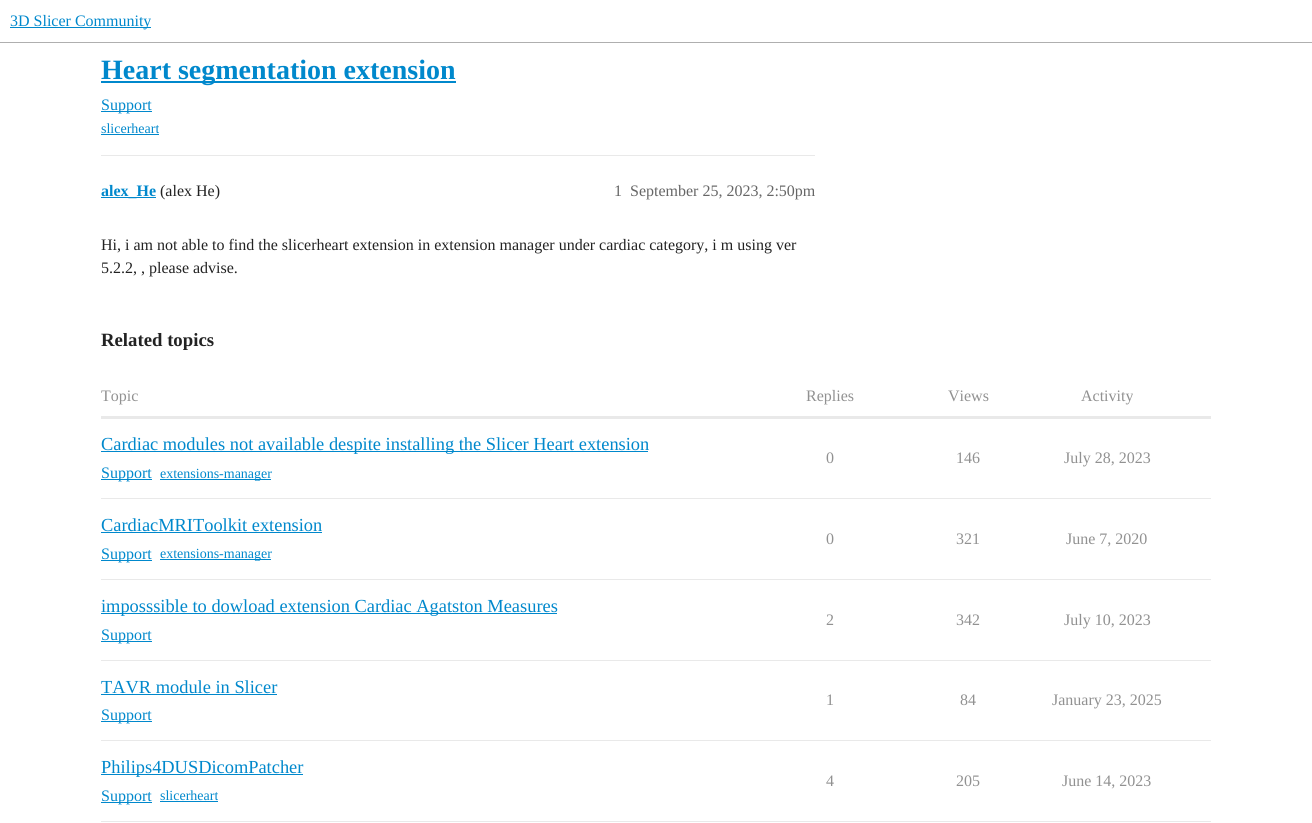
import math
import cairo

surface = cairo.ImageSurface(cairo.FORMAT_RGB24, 1312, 823)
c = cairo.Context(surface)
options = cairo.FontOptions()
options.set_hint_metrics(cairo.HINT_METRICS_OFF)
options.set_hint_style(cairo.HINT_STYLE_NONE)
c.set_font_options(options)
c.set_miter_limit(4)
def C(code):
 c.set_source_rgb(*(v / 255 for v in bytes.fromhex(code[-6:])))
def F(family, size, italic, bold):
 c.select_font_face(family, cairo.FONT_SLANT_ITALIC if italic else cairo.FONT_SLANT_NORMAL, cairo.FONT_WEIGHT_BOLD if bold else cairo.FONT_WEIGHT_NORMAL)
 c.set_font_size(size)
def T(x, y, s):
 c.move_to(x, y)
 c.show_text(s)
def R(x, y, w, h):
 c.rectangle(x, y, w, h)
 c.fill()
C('ffffff')
c.paint()
C('afafaf')
R(0,42,1312,1)
C('0088cc')
R(10,27,141,1)
F('Liberation Serif',16,0,0)
T(10,26,'3D Slicer Community')
R(101,81,355,2)
F('Liberation Serif',28,0,1)
T(101,79,'Heart segmentation extension')
R(101,111,51,1)
F('Liberation Serif',16,0,0)
T(101,110,'Support')
F('Liberation Serif',14,0,0)
T(101,133,'slicerheart')
R(101,134,58,1)
C('e9e9e9')
R(101,155,714,1)
C('0088cc')
R(101,197,55,1)
F('Liberation Serif',16,0,1)
T(101,196,'alex_He')
F('Liberation Serif',16,0,0)
C('222222')
T(160,196,'(alex He)')
C('666666')
T(614,196,'1')
T(630,196,'September 25, 2023, 2:50pm')
C('222222')
T(101,250,'Hi, i am not able to find the slicerheart extension in extension manager under cardiac category, i m using ver')
T(101,273,'5.2.2, , please advise.')
F('Liberation Serif',18.75,0,1)
T(101,346,'Related topics')
F('Liberation Serif',16,0,0)
C('919191')
T(101,401,'Topic')
T(806,401,'Replies')
T(948,401,'Views')
T(1081,401,'Activity')
C('e9e9e9')
R(101,416,1110,3)
R(101,498,1110,1)
C('0088cc')
R(101,451,547,1)
F('Liberation Serif',18.4,0,0)
T(101,450,'Cardiac modules not available despite installing the Slicer Heart extension')
R(101,479,51,1)
F('Liberation Serif',16,0,0)
T(101,478,'Support')
R(160,479,111,1)
F('Liberation Serif',14,0,0)
T(160,478,'extensions-manager')
F('Liberation Serif',16,0,0)
C('919191')
T(826,463,'0')
T(956,463,'146')
T(1064,463,'July 28, 2023')
C('e9e9e9')
R(101,579,1110,1)
F('Liberation Serif',18.4,0,0)
C('0088cc')
T(101,531,'CardiacMRIToolkit extension')
R(101,532,221,1)
R(101,560,51,1)
F('Liberation Serif',16,0,0)
T(101,559,'Support')
R(160,559,111,1)
F('Liberation Serif',14,0,0)
T(160,558,'extensions-manager')
F('Liberation Serif',16,0,0)
C('919191')
T(826,544,'0')
T(956,544,'321')
T(1066,544,'June 7, 2020')
C('e9e9e9')
R(101,660,1110,1)
C('0088cc')
R(101,613,456,1)
F('Liberation Serif',18.4,0,0)
T(101,612,'imposssible to dowload extension Cardiac Agatston Measures')
R(101,641,51,1)
F('Liberation Serif',16,0,0)
T(101,640,'Support')
C('919191')
T(826,625,'2')
T(956,625,'342')
T(1064,625,'July 10, 2023')
C('e9e9e9')
R(101,740,1110,1)
F('Liberation Serif',18.4,0,0)
C('0088cc')
T(101,693,'TAVR module in Slicer')
R(101,694,176,1)
R(101,721,51,1)
F('Liberation Serif',16,0,0)
T(101,720,'Support')
C('919191')
T(826,705,'1')
T(960,705,'84')
T(1052,705,'January 23, 2025')
C('e9e9e9')
R(101,821,1110,1)
C('0088cc')
R(101,774,202,1)
F('Liberation Serif',18.4,0,0)
T(101,773,'Philips4DUSDicomPatcher')
R(101,802,51,1)
F('Liberation Serif',16,0,0)
T(101,801,'Support')
F('Liberation Serif',14,0,0)
T(160,800,'slicerheart')
R(160,801,58,1)
F('Liberation Serif',16,0,0)
C('919191')
T(826,786,'4')
T(956,786,'205')
T(1062,786,'June 14, 2023')
surface.write_to_png('o.png')
